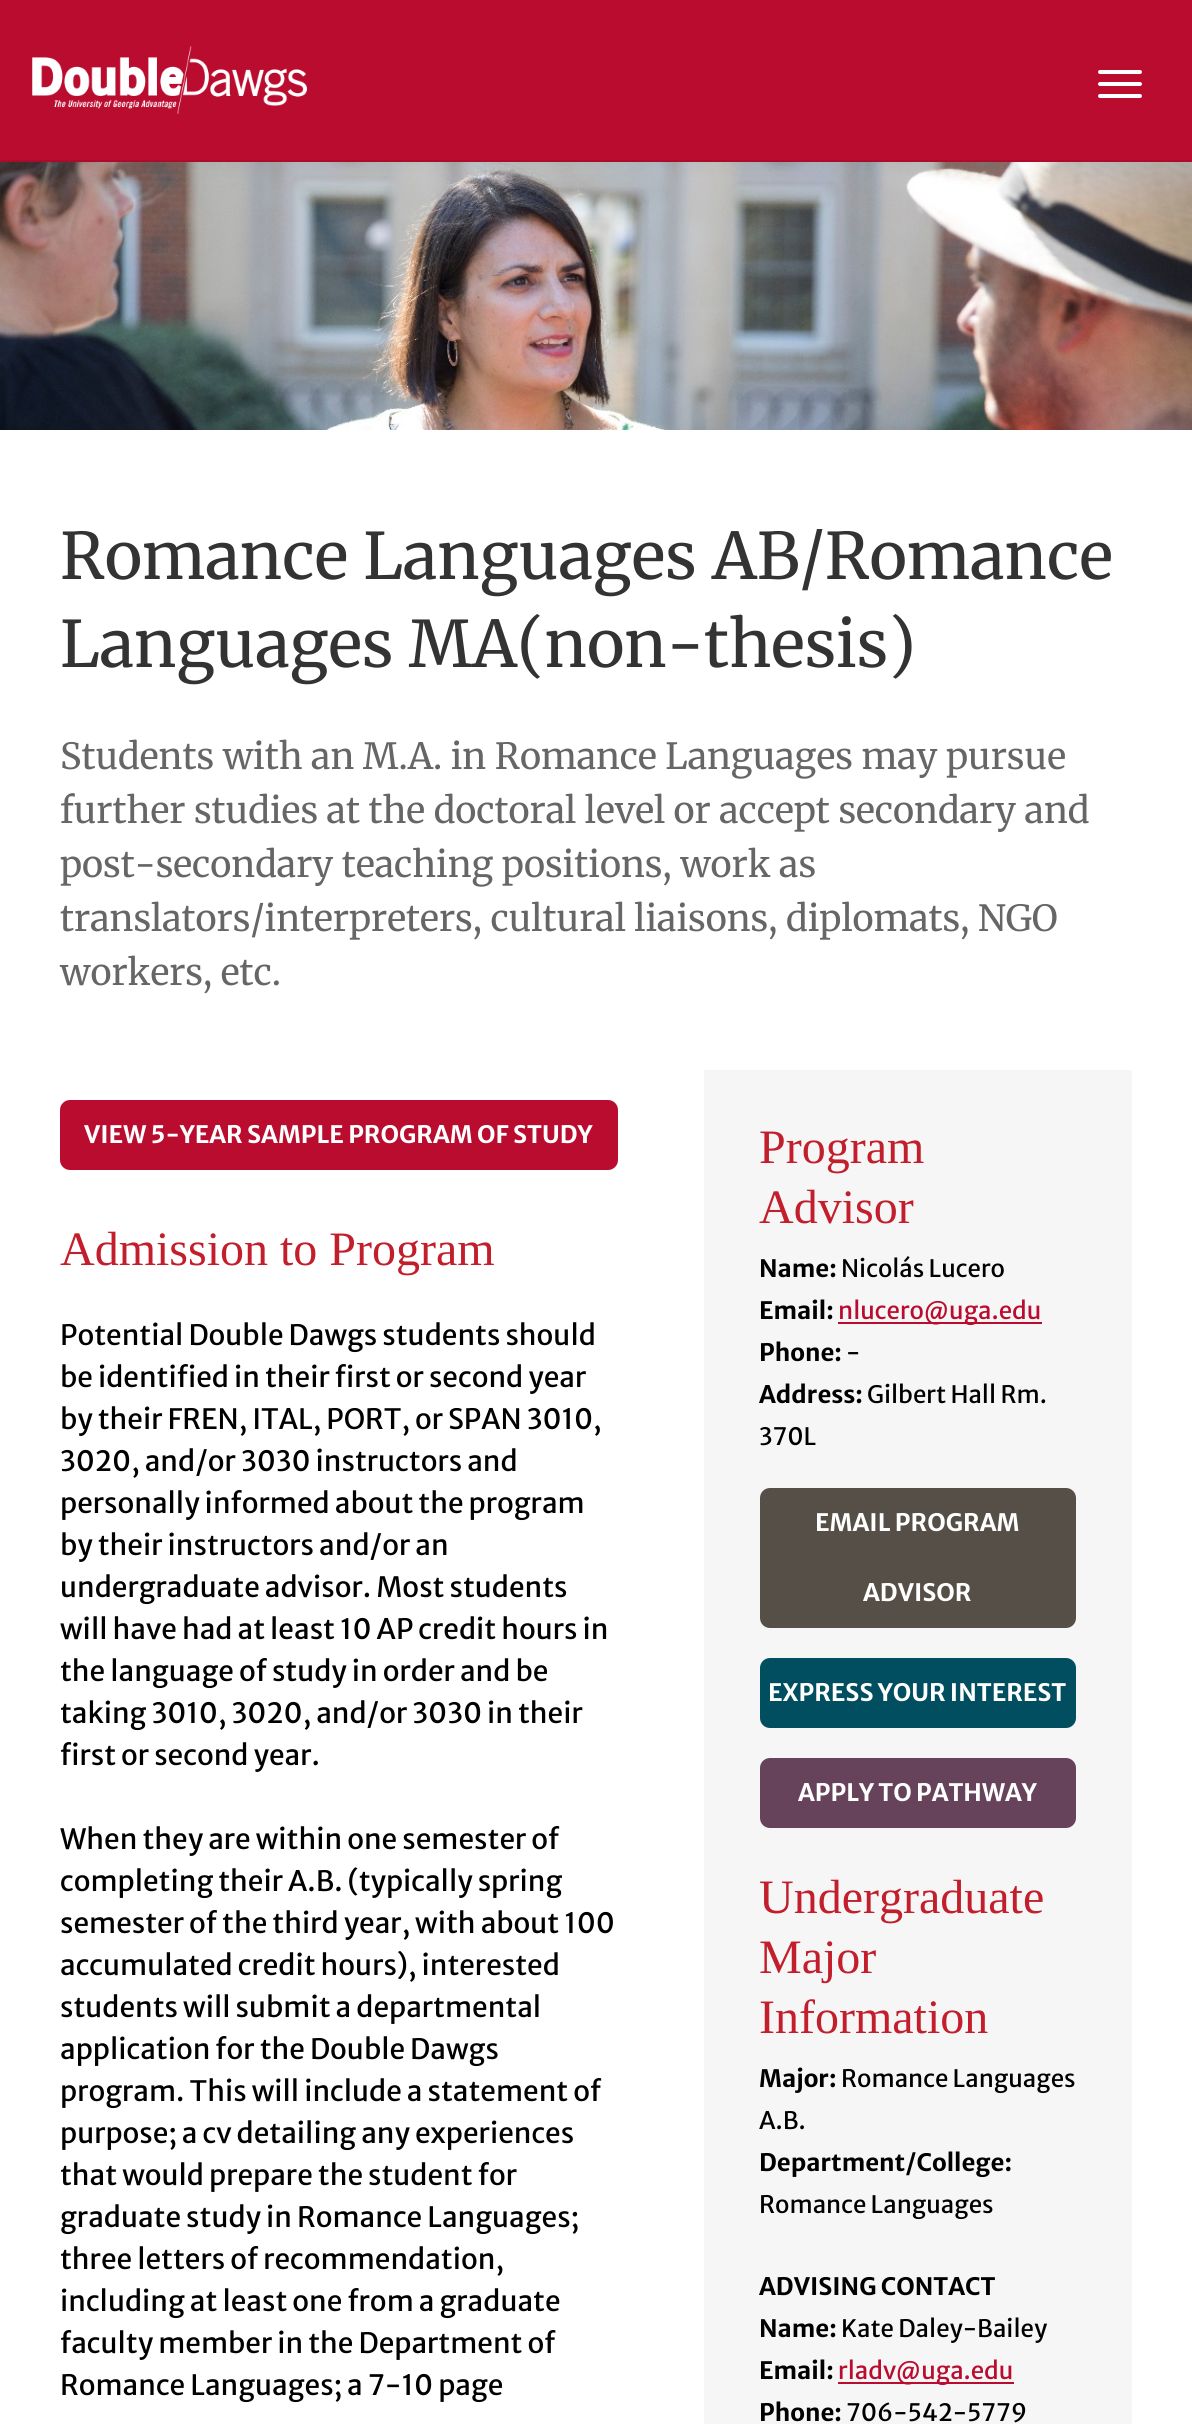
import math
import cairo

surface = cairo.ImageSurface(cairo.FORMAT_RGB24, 1192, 2424)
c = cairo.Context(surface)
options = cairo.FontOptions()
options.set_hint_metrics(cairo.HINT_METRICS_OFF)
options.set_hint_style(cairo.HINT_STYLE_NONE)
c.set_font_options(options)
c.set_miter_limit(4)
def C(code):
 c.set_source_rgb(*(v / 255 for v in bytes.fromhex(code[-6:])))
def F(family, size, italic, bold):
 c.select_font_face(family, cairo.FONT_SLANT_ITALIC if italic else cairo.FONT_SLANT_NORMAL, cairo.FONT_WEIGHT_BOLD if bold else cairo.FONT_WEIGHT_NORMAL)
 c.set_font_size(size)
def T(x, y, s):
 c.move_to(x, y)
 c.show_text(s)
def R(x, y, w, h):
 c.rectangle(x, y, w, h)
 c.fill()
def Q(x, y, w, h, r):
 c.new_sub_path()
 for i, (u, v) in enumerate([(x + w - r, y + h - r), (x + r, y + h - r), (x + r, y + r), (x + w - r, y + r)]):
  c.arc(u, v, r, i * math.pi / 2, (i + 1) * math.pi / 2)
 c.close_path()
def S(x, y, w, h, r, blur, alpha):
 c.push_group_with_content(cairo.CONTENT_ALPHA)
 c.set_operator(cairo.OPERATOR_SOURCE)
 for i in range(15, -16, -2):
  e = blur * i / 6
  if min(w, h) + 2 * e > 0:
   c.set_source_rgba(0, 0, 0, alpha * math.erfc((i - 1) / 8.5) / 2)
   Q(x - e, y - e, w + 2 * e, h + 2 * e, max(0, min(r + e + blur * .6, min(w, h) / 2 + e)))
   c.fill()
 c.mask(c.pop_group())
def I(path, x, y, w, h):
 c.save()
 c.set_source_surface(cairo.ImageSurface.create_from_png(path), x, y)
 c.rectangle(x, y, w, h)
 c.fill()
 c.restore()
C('ffffff')
c.paint()
I('2.png',0,162,1192,268)
C('000000')
S(0,0,1192,162,0,10,.05)
C('ba0c2f')
R(0,0,1192,160)
C('ac0b2b')
R(0,160,1192,2)
I('1.png',32,46,275,68)
C('ffffff')
Q(1098,70,44,4,2)
c.fill()
Q(1098,82,44,4,2)
c.fill()
Q(1098,94,44,4,2)
c.fill()
F('Merriweather',64,0,0)
C('333333')
T(60,579,'Romance Languages AB/Romance')
T(60,667,'Languages MA(non-thesis)')
F('Merriweather',36,0,0)
C('666666')
T(60,769,'Students with an M.A. in Romance Languages may pursue')
T(60,823,'further studies at the doctoral level or accept secondary and')
T(60,877,'post-secondary teaching positions, work as')
T(60,931,'translators/interpreters, cultural liaisons, diplomats, NGO')
T(60,985,'workers, etc.')
C('ba0c2f')
Q(60,1100,558,70,10)
c.fill()
F('Merriweather Sans',24,0,1)
C('ffffff')
T(84,1143,'VIEW 5-YEAR SAMPLE PROGRAM OF STUDY')
F('Liberation Serif',48,0,0)
C('c21e2b')
T(60,1265,'Admission to Program')
F('Merriweather Sans',28,0,0)
C('000000')
T(60,1345,'Potential Double Dawgs students should')
T(60,1387,'be identified in their first or second year')
T(60,1429,'by their FREN, ITAL, PORT, or SPAN 3010,')
T(60,1471,'3020, and/or 3030 instructors and')
T(60,1513,'personally informed about the program')
T(60,1555,'by their instructors and/or an')
T(60,1597,'undergraduate advisor. Most students')
T(60,1639,'will have had at least 10 AP credit hours in')
T(60,1681,'the language of study in order and be')
T(60,1723,'taking 3010, 3020, and/or 3030 in their')
T(60,1765,'first or second year.')
T(60,1849,'When they are within one semester of')
T(60,1891,'completing their A.B. (typically spring')
T(60,1933,'semester of the third year, with about 100')
T(60,1975,'accumulated credit hours), interested')
T(60,2017,'students will submit a departmental')
T(60,2059,'application for the Double Dawgs')
T(60,2101,'program. This will include a statement of')
T(60,2143,'purpose; a cv detailing any experiences')
T(60,2185,'that would prepare the student for')
T(60,2227,'graduate study in Romance Languages;')
T(60,2269,'three letters of recommendation,')
T(60,2311,'including at least one from a graduate')
T(60,2353,'faculty member in the Department of')
T(60,2395,'Romance Languages; a 7-10 page')
C('f6f6f6')
R(704,1070,428,1354)
F('Liberation Serif',48,0,0)
C('c21e2b')
T(759,1163,'Program')
T(759,1223,'Advisor')
F('Merriweather Sans',24,0,1)
C('000000')
T(759,1277,'Name:')
F('Merriweather Sans',24,0,0)
T(841,1277,'Nicolás Lucero')
F('Merriweather Sans',24,0,1)
T(759,1319,'Email:')
C('ba0c2f')
R(838,1322,204,2)
F('Merriweather Sans',24,0,0)
T(838,1319,'nlucero@uga.edu')
F('Merriweather Sans',24,0,1)
C('000000')
T(759,1361,'Phone:')
F('Merriweather Sans',24,0,0)
T(846,1361,'-')
F('Merriweather Sans',24,0,1)
T(759,1403,'Address:')
F('Merriweather Sans',24,0,0)
T(867,1403,'Gilbert Hall Rm.')
T(759,1445,'370L')
C('554f47')
Q(760,1488,316,140,10)
c.fill()
F('Merriweather Sans',24,0,1)
C('ffffff')
T(815,1531,'EMAIL PROGRAM')
T(863,1601,'ADVISOR')
C('004e60')
Q(760,1658,316,70,10)
c.fill()
C('ffffff')
T(768,1701,'EXPRESS YOUR INTEREST')
C('66435a')
Q(760,1758,316,70,10)
c.fill()
C('ffffff')
T(798,1801,'APPLY TO PATHWAY')
F('Liberation Serif',48,0,0)
C('c21e2b')
T(759,1913,'Undergraduate')
T(759,1973,'Major')
T(759,2033,'Information')
F('Merriweather Sans',24,0,1)
C('000000')
T(759,2087,'Major:')
F('Merriweather Sans',24,0,0)
T(841,2087,'Romance Languages')
T(759,2129,'A.B.')
F('Merriweather Sans',24,0,1)
T(759,2171,'Department/College:')
F('Merriweather Sans',24,0,0)
T(759,2213,'Romance Languages')
F('Merriweather Sans',24,0,1)
T(759,2295,'ADVISING CONTACT')
T(759,2337,'Name:')
F('Merriweather Sans',24,0,0)
T(841,2337,'Kate Daley-Bailey')
F('Merriweather Sans',24,0,1)
T(759,2379,'Email:')
C('ba0c2f')
R(838,2382,176,2)
F('Merriweather Sans',24,0,0)
T(838,2379,'rladv@uga.edu')
F('Merriweather Sans',24,0,1)
C('000000')
T(759,2421,'Phone:')
F('Merriweather Sans',24,0,0)
T(846,2421,'706-542-5779')
surface.write_to_png('o.png')
